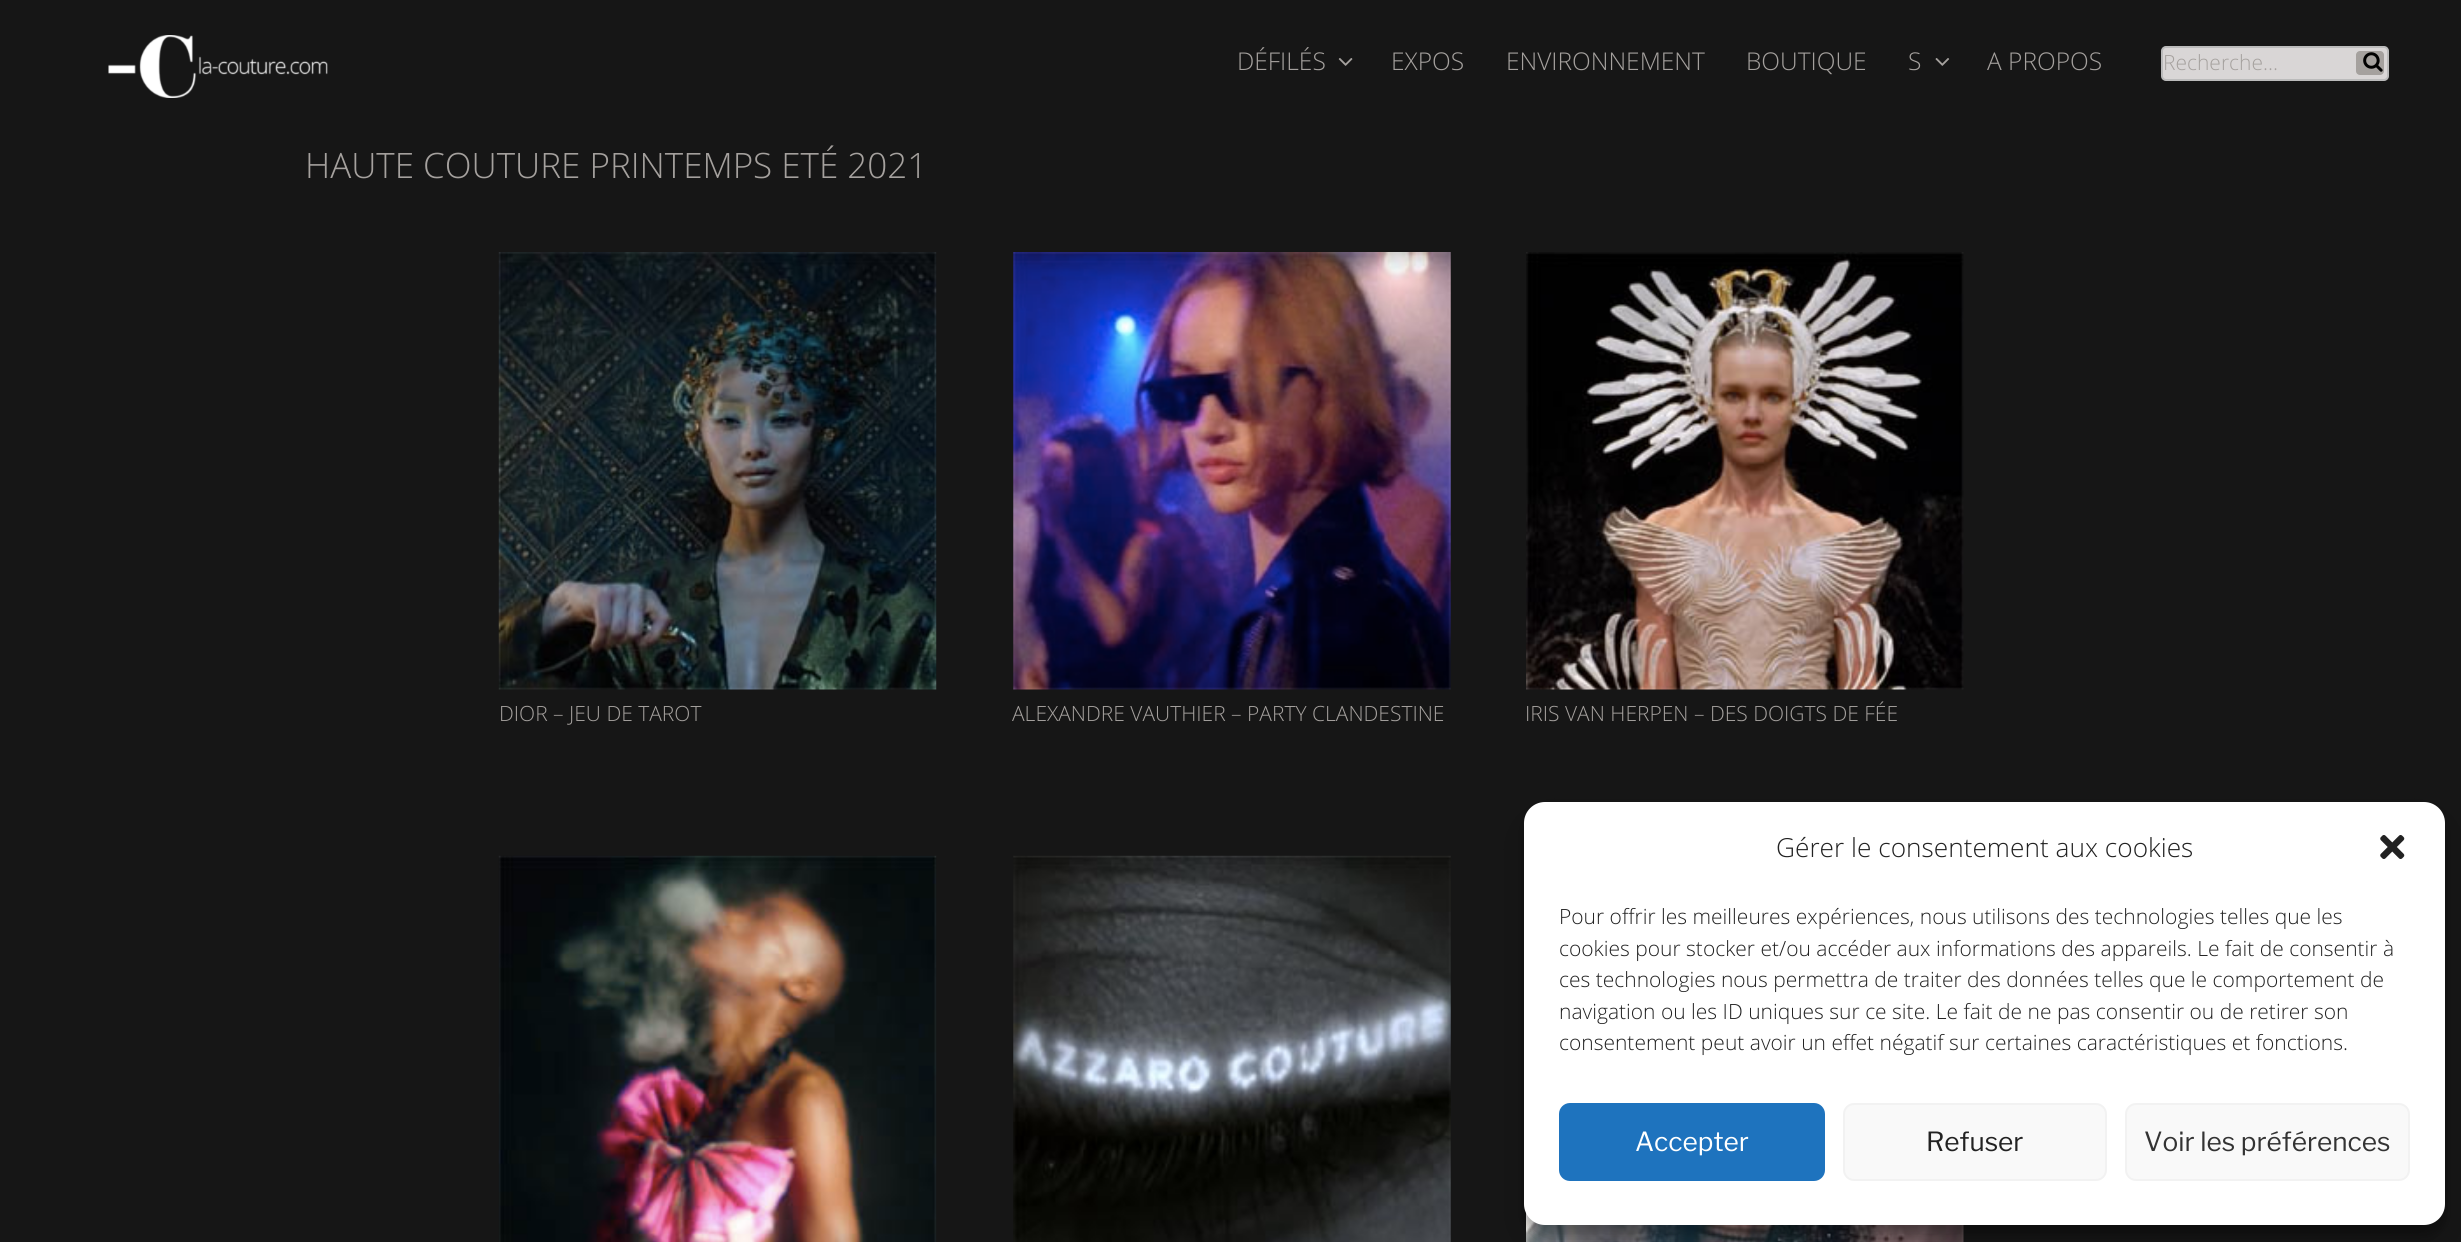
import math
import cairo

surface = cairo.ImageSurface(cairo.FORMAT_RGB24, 2461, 1242)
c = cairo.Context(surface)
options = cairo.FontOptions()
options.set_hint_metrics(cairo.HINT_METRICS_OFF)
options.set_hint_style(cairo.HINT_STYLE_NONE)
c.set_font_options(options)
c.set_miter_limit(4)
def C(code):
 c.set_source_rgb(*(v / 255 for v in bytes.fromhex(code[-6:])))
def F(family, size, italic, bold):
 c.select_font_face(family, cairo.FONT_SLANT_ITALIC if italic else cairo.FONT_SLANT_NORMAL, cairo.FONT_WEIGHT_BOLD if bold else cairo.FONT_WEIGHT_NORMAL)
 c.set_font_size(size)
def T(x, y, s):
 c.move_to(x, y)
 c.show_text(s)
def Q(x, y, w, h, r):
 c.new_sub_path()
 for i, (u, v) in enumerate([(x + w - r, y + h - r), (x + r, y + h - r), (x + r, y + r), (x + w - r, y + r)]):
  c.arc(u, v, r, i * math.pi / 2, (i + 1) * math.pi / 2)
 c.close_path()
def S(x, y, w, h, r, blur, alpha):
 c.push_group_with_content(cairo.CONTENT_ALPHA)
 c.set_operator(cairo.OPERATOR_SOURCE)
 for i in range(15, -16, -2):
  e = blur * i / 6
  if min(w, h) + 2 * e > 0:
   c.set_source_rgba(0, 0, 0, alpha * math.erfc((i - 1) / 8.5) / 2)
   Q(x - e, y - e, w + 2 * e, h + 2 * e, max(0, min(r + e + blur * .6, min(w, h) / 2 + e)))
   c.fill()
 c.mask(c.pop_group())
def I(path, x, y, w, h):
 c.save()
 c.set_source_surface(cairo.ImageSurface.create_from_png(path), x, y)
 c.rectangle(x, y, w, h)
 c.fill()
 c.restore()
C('161616')
c.paint()
I('1.png',108,35,220,63)
F('Open Sans Light',24.5,0,0)
C('a5a19e')
T(1237,70,'DÉFILÉS')
I('2.png',1338,58,15,8)
T(1391,70,'EXPOS')
T(1506,70,'ENVIRONNEMENT')
T(1746,70,'BOUTIQUE')
T(1908,70,'S')
I('3.png',1935,58,15,8)
T(1987,70,'A PROPOS')
C('d9d6d6')
Q(2162,47,226,33,4)
c.fill_preserve()
C('bbbbbb')
c.stroke()
F('Open Sans Light',21,0,0)
C('a5a19e')
T(2163,70,'Recherche…')
Q(2356,51,28,24,4)
c.fill()
I('4.png',2363,52,20,20)
F('Open Sans Light',35,0,0)
T(305,178,'HAUTE COUTURE PRINTEMPS ETÉ 2021')
I('5.png',498,252,439,438)
F('Open Sans Light',21,0,0)
T(499,721,'DIOR – JEU DE TAROT')
I('6.png',1013,252,438,438)
T(1012,721,'ALEXANDRE VAUTHIER – PARTY CLANDESTINE')
I('7.png',1526,252,438,438)
T(1525,721,'IRIS VAN HERPEN – DES DOIGTS DE FÉE')
I('8.png',498,855,439,387)
I('9.png',1013,855,438,387)
I('10.png',1526,1213,438,29)
C('000000')
S(1524,812,921,424,21,5,.23)
S(1524,819,921,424,21,17.5,.19)
C('ffffff')
Q(1524,802,921,423,21)
c.fill()
F('Open Sans Light',26.25,0,0)
C('222222')
T(1776,857,'Gérer le consentement aux cookies')
I('11.png',2380,835,25,24)
F('Open Sans Light',21,0,0)
T(1559,924,'Pour offrir les meilleures expériences, nous utilisons des technologies telles que les')
T(1559,956,'cookies pour stocker et/ou accéder aux informations des appareils. Le fait de consentir à')
T(1559,987,'ces technologies nous permettra de traiter des données telles que le comportement de')
T(1559,1019,'navigation ou les ID uniques sur ce site. Le fait de ne pas consentir ou de retirer son')
T(1559,1050,'consentement peut avoir un effet négatif sur certaines caractéristiques et fonctions.')
C('1e73be')
Q(1560,1104,264,76,10)
c.fill_preserve()
c.stroke()
F('Libre Franklin',26.25,0,0)
C('ffffff')
T(1635,1151,'Accepter')
C('f9f9f9')
Q(1844,1104,262,76,10)
c.fill_preserve()
C('f2f2f2')
c.stroke()
C('222222')
T(1926,1151,'Refuser')
C('f9f9f9')
Q(2126,1104,283,76,10)
c.fill_preserve()
C('f2f2f2')
c.stroke()
C('333333')
T(2144,1151,'Voir les préférences')
surface.write_to_png('o.png')
